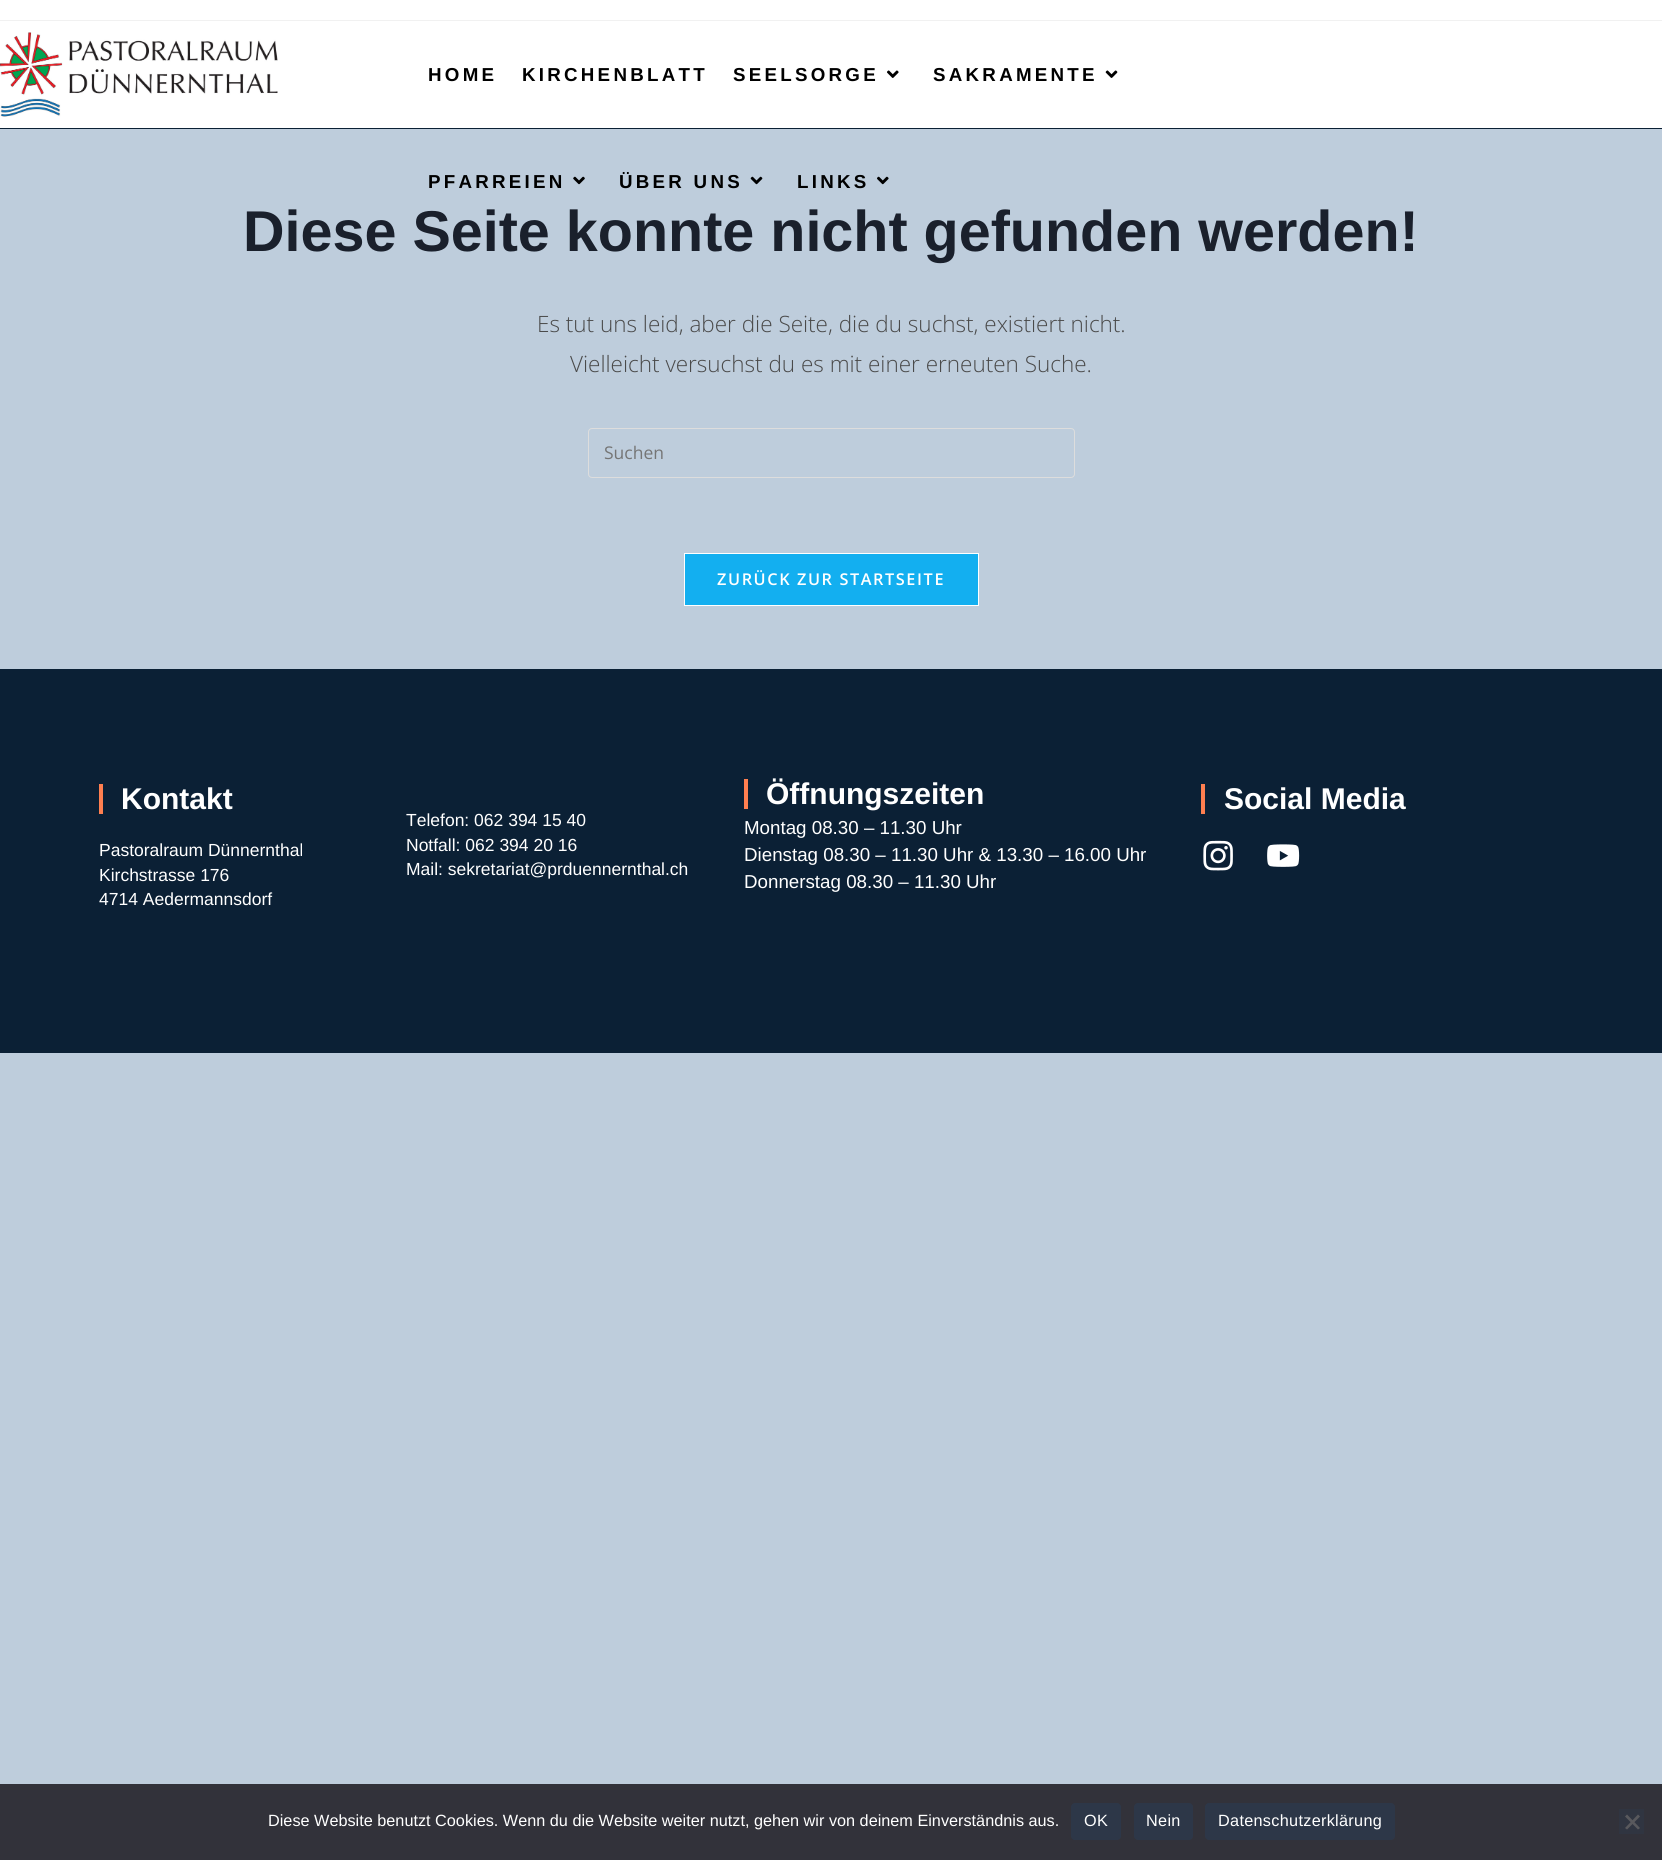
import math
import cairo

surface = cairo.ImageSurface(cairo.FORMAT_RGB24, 1662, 1860)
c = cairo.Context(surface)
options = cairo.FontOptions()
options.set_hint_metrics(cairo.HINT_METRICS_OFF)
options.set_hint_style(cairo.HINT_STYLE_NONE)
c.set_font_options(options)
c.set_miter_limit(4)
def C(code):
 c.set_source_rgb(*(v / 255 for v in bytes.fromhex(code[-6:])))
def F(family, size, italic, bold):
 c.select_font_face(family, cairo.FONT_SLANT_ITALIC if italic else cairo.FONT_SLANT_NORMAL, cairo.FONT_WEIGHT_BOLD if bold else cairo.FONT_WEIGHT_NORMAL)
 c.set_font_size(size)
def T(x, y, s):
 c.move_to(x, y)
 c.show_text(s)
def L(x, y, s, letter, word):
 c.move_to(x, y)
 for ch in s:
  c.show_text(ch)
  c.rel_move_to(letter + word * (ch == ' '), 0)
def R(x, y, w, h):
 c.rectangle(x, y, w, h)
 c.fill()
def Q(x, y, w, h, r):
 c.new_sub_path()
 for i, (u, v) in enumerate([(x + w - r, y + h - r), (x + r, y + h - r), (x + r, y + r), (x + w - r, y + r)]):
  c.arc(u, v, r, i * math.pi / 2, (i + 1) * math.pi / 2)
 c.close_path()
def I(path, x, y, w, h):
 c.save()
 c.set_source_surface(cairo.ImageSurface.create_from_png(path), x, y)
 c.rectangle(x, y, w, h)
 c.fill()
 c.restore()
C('becddc')
c.paint()
C('ffffff')
R(0,0,1662,20)
C('f1f1f1')
R(0,20,1662,1)
C('ffffff')
R(0,21,1662,107)
C('0b2035')
R(0,128,1662,1)
I('1.png',0,32,278,85)
F('Liberation Sans',18.75,0,1)
C('000000')
L(428,81,'HOME',3.25,0)
L(522,81,'KIRCHENBLATT',3.25,0)
L(733,81,'SEELSORGE',3.25,0)
I('2.png',887,70,12,8)
L(933,81,'SAKRAMENTE',3.25,0)
I('3.png',1105,70,13,8)
L(428,188,'PFARREIEN',3.25,0)
I('4.png',573,176,12,9)
L(619,188,'ÜBER UNS',3.25,0)
I('5.png',750,176,13,9)
L(797,188,'LINKS',3.25,0)
I('6.png',877,176,12,9)
F('Liberation Sans',57.5,0,1)
C('1a202c')
T(243,251,'Diese Seite konnte nicht gefunden werden!')
F('Open Sans Light',22.5,0,0)
C('4a4a4a')
T(537,332,'Es tut uns leid, aber die Seite, die du suchst, existiert nicht.')
T(570,372,'Vielleicht versuchst du es mit einer erneuten Suche.')
Q(588.5,428.5,486,49,3.5)
C('dddddd')
c.set_line_width(1)
c.stroke()
F('Open Sans',17.5,0,0)
C('757575')
T(604,459,'Suchen')
C('13aff0')
c.rectangle(684.5,553.5,294,52)
c.fill_preserve()
C('ffffff')
c.stroke()
F('Open Sans SemiBold',16.25,0,0)
L(717,585,'ZURÜCK ZUR STARTSEITE',1.6,0)
C('0b2035')
R(0,669,1662,384)
C('ff7f50')
R(99,784,4,30)
F('Liberation Sans',30,0,1)
C('ffffff')
T(121,809,'Kontakt')
F('Liberation Sans',17.5,0,0)
T(99,856,'Pastoralraum Dünnernthal')
T(99,881,'Kirchstrasse 176')
T(99,905,'4714 Aedermannsdorf')
C('ff7f50')
R(744,779,4,30)
F('Liberation Sans',30,0,1)
C('ffffff')
T(766,804,'Öffnungszeiten')
F('Liberation Sans',18.75,0,0)
T(744,834,'Montag 08.30 – 11.30 Uhr')
T(744,861,'Dienstag 08.30 – 11.30 Uhr & 13.30 – 16.00 Uhr')
T(744,888,'Donnerstag 08.30 – 11.30 Uhr')
C('ff7f50')
R(1201,784,4,30)
F('Liberation Sans',30,0,1)
C('ffffff')
T(1224,809,'Social Media')
I('7.png',1203,840,30,31)
I('8.png',1267,844,33,23)
F('Liberation Sans',17.5,0,0)
T(406,826,'Telefon: 062 394 15 40')
T(406,851,'Notfall: 062 394 20 16')
T(406,875,'Mail: sekretariat@prduennernthal.ch')
C('32323a')
R(0,1784,1662,76)
F('Liberation Sans',16.25,0,0)
C('ffffff')
T(268,1826,'Diese Website benutzt Cookies. Wenn du die Website weiter nutzt, gehen wir von deinem Einverständnis aus.')
C('2d3748')
Q(1071,1803,50,37,4)
c.fill()
C('ffffff')
L(1084,1826,'OK',.3,0)
C('2d3748')
Q(1134,1803,59,37,4)
c.fill()
C('ffffff')
L(1146,1826,'Nein',.3,0)
C('2d3748')
Q(1205,1803,190,37,4)
c.fill()
C('ffffff')
L(1218,1826,'Datenschutzerklärung',.3,0)
C('303541')
R(1619,1809,25,25)
C('59595d')
c.new_path()
c.move_to(1638,1814.5)
c.line_to(1640,1816.5)
c.line_to(1627,1829.5)
c.line_to(1625,1828)
c.close_path()
c.fill()
c.new_path()
c.move_to(1625,1816.5)
c.line_to(1627,1814.5)
c.line_to(1640,1828)
c.line_to(1638,1829.5)
c.close_path()
c.fill()
surface.write_to_png('o.png')
